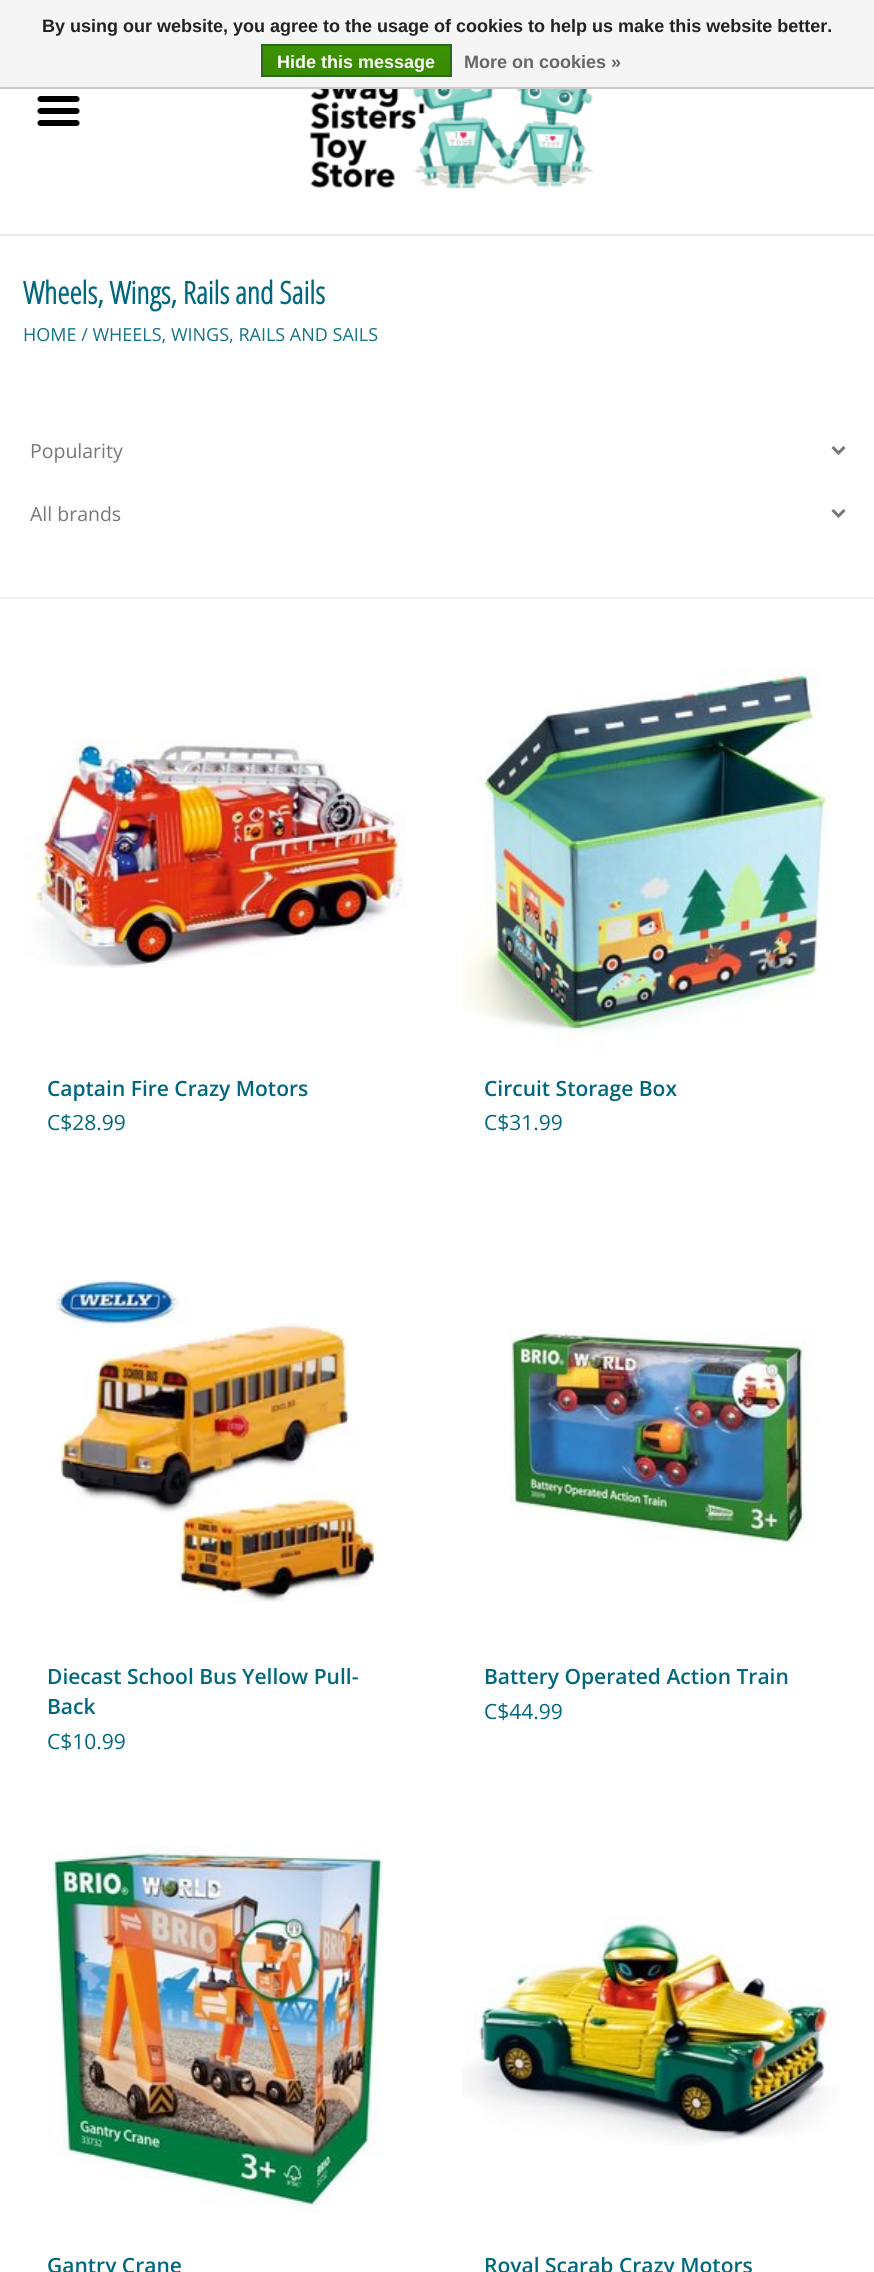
import math
import cairo

surface = cairo.ImageSurface(cairo.FORMAT_RGB24, 874, 2272)
c = cairo.Context(surface)
options = cairo.FontOptions()
options.set_hint_metrics(cairo.HINT_METRICS_OFF)
options.set_hint_style(cairo.HINT_STYLE_NONE)
c.set_font_options(options)
c.set_miter_limit(4)
def C(code):
 c.set_source_rgb(*(v / 255 for v in bytes.fromhex(code[-6:])))
def F(family, size, italic, bold):
 c.select_font_face(family, cairo.FONT_SLANT_ITALIC if italic else cairo.FONT_SLANT_NORMAL, cairo.FONT_WEIGHT_BOLD if bold else cairo.FONT_WEIGHT_NORMAL)
 c.set_font_size(size)
def T(x, y, s):
 c.move_to(x, y)
 c.show_text(s)
def R(x, y, w, h):
 c.rectangle(x, y, w, h)
 c.fill()
def I(path, x, y, w, h):
 c.save()
 c.set_source_surface(cairo.ImageSurface.create_from_png(path), x, y)
 c.rectangle(x, y, w, h)
 c.fill()
 c.restore()
C('ffffff')
c.paint()
C('f5f5f5')
R(0,0,874,87)
C('cccccc')
R(0,87,874,2)
F('Liberation Sans',18,0,1)
C('222222')
T(42,32,'By using our website, you agree to the usage of cookies to help us make this website better.')
gradient = cairo.LinearGradient(356,45,356,75)
gradient.add_color_stop_rgba(0,0.235,0.576,0,1)
gradient.add_color_stop_rgba(1,0.224,0.541,0,1)
c.set_source(gradient)
R(263,46,187,29)
c.rectangle(262,45,189,31)
C('29691d')
c.stroke()
C('ffffff')
T(277,68,'Hide this message')
C('666666')
T(464,68,'More on cookies »')
C('eaeaea')
R(0,234,874,2)
I('1.png',309,89,284,100)
I('2.png',37,96,43,30)
F('Open Sans Condensed',31,0,1)
C('00677f')
T(23,304,'Wheels, Wings, Rails and Sails')
F('Open Sans',18,0,0)
C('147389')
T(23,341,'HOME / WHEELS, WINGS, RAILS AND SAILS')
C('f0f0f0')
R(0,597,874,2)
c.new_path()
c.move_to(832.5,447)
c.line_to(838.5,453)
c.line_to(844.5,447)
C('777777')
c.set_line_width(3)
c.stroke()
F('Open Sans',19.5,0,0)
T(30,458,'Popularity')
c.new_path()
c.move_to(832.5,510)
c.line_to(838.5,516)
c.line_to(844.5,510)
c.stroke()
T(30,521,'All brands')
I('3.png',24,739,382,229)
F('Open Sans SemiBold',21,0,0)
C('00677f')
T(47,1096,'Captain Fire Crazy Motors')
F('Open Sans',21,0,0)
T(47,1130,'C$28.99')
I('4.png',462,668,368,381)
F('Open Sans SemiBold',21,0,0)
T(484,1096,'Circuit Storage Box')
F('Open Sans',21,0,0)
T(484,1130,'C$31.99')
I('5.png',55,1280,325,322)
F('Open Sans SemiBold',21,0,0)
T(47,1684,'Diecast School Bus Yellow Pull-')
T(47,1714,'Back')
F('Open Sans',21,0,0)
T(47,1749,'C$10.99')
I('6.png',509,1328,310,217)
F('Open Sans SemiBold',21,0,0)
T(484,1684,'Battery Operated Action Train')
F('Open Sans',21,0,0)
T(484,1719,'C$44.99')
I('7.png',47,1846,336,367)
F('Open Sans SemiBold',21,0,0)
T(47,2273,'Gantry Crane')
I('8.png',462,1917,379,228)
T(484,2273,'Royal Scarab Crazy Motors')
surface.write_to_png('o.png')
